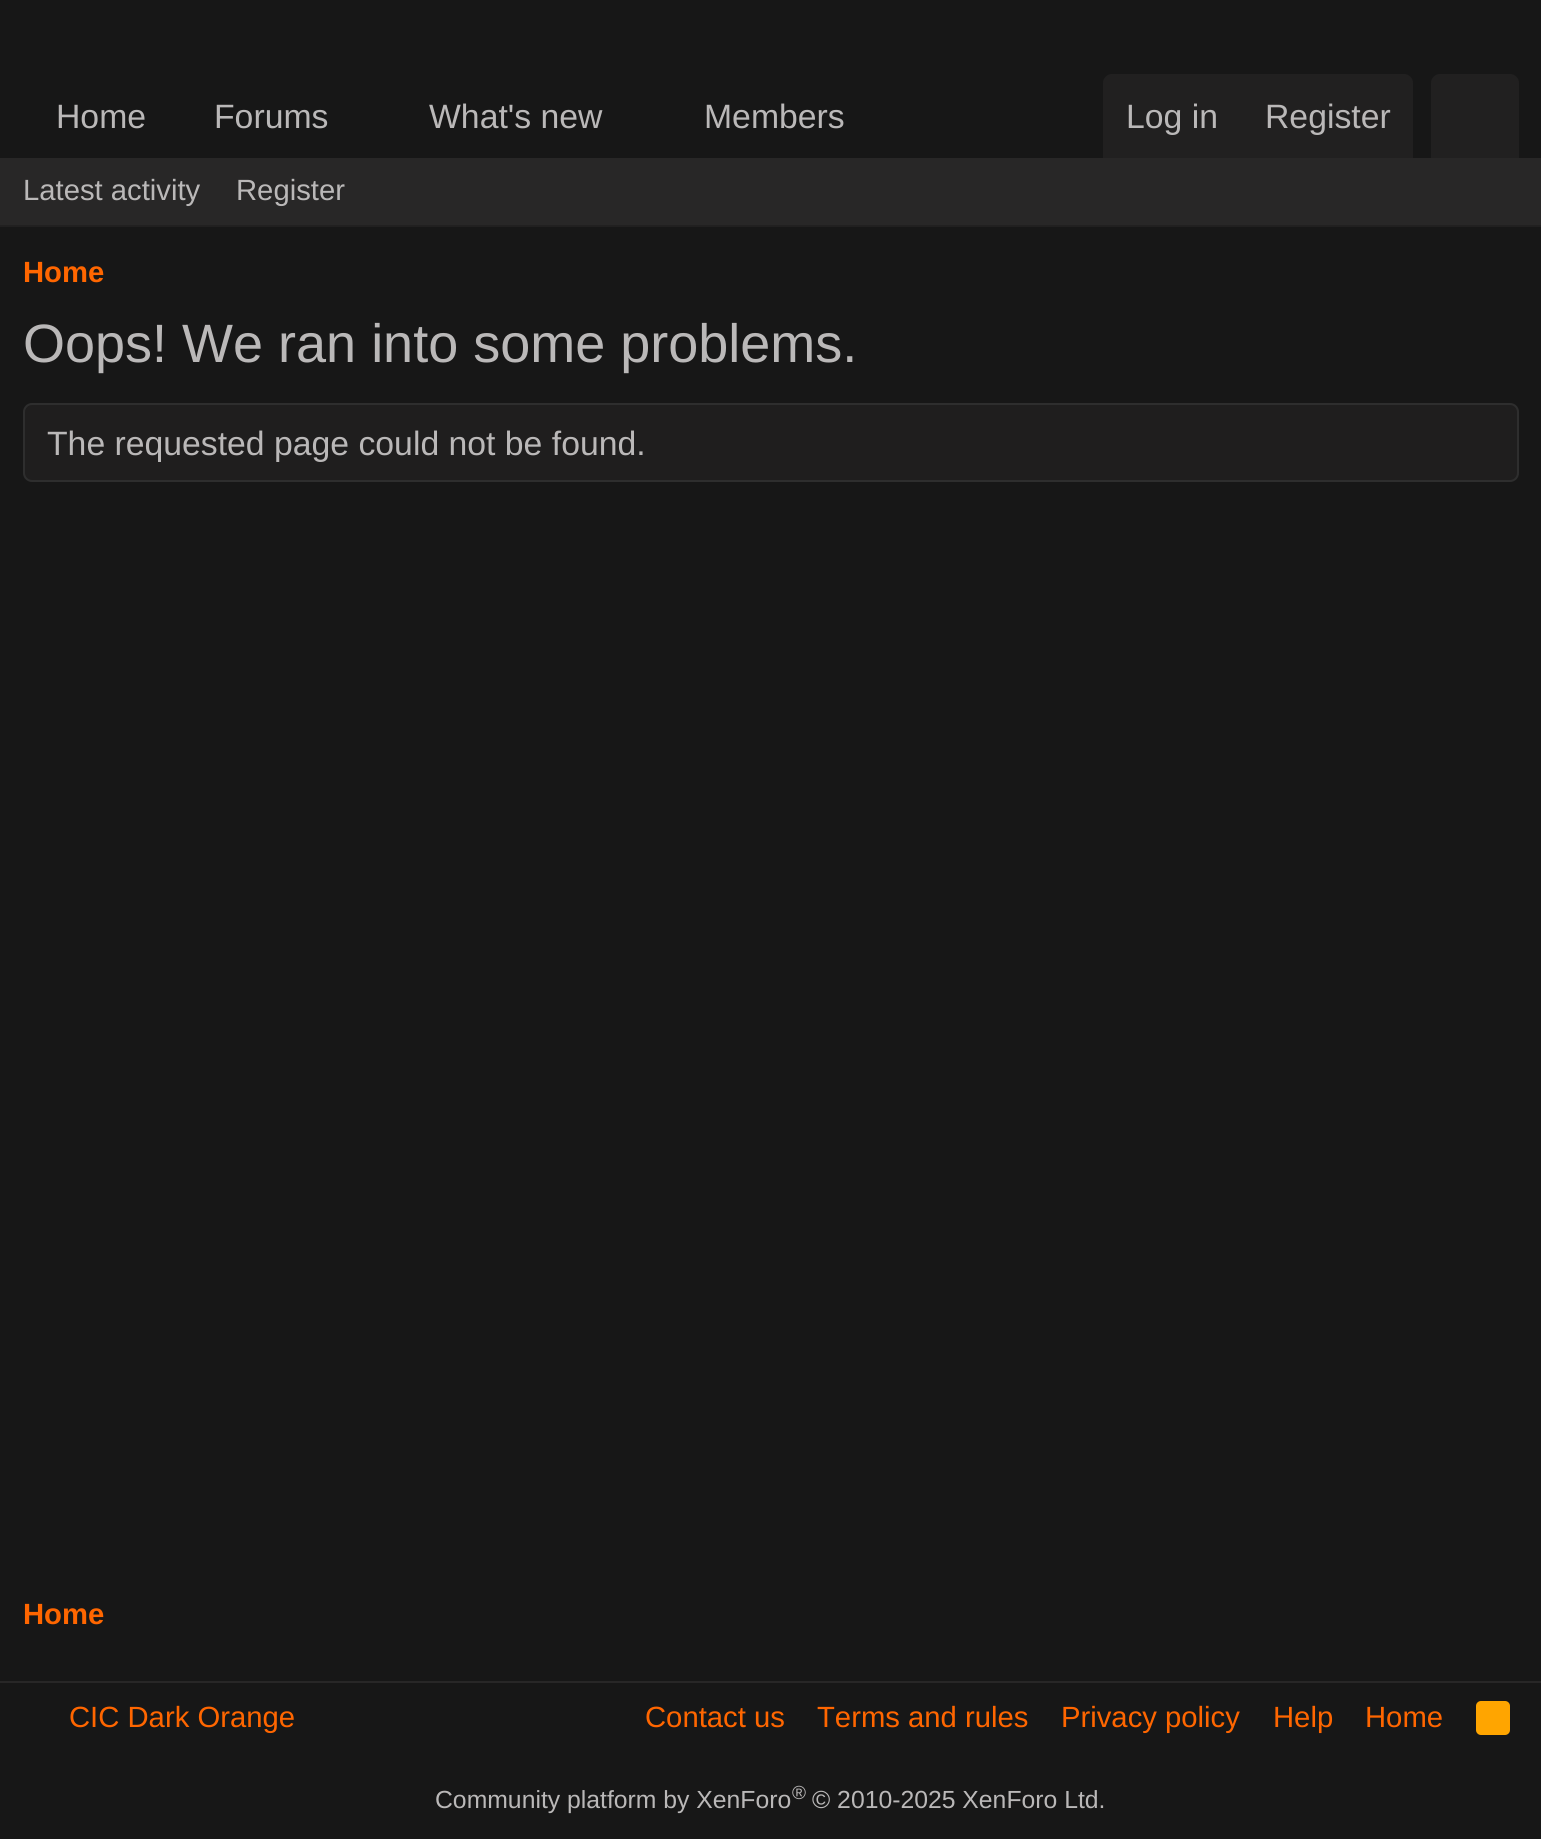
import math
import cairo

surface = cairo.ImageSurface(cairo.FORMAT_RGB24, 1541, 1839)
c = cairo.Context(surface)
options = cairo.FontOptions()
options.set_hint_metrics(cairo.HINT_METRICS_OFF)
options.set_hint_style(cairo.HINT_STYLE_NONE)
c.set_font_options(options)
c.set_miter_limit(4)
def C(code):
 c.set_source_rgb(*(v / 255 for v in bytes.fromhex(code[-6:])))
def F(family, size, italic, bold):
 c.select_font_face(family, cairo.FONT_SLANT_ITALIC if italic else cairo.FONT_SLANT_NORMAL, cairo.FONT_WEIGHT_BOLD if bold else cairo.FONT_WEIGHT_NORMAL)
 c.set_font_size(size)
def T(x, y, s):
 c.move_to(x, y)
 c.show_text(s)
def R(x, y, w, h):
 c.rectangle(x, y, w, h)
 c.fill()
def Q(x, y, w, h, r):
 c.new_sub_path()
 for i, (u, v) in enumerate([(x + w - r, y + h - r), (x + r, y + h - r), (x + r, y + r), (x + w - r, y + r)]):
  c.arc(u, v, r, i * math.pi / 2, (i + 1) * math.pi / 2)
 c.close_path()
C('171717')
c.paint()
F('Liberation Sans',33.75,0,0)
C('bab8b8')
T(56,128,'Home')
T(214,128,'Forums')
T(429,128,'What\'s new')
T(704,128,'Members')
C('212020')
c.new_path()
c.move_to(1112,74)
c.line_to(1404,74)
c.curve_to(1409,74,1413,78,1413,83)
c.line_to(1413,158)
c.line_to(1103,158)
c.line_to(1103,83)
c.curve_to(1103,78,1107,74,1112,74)
c.close_path()
c.fill()
C('bab8b8')
T(1126,128,'Log in')
T(1265,128,'Register')
C('212020')
c.new_path()
c.move_to(1440,74)
c.line_to(1510,74)
c.curve_to(1515,74,1519,78,1519,83)
c.line_to(1519,158)
c.line_to(1431,158)
c.line_to(1431,83)
c.curve_to(1431,78,1435,74,1440,74)
c.close_path()
c.fill()
C('282727')
R(0,158,1541,67)
C('212020')
R(0,225,1541,2)
F('Liberation Sans',29.25,0,0)
C('bab8b8')
T(23,200,'Latest activity')
T(236,200,'Register')
F('Liberation Sans',29.25,0,1)
C('ff6600')
T(23,282,'Home')
F('Liberation Sans',54,0,0)
C('bab8b8')
T(23,362,'Oops! We ran into some problems.')
C('1f1e1e')
Q(24,404,1494,77,8)
c.fill_preserve()
C('2e2e2e')
c.stroke()
F('Liberation Sans',33.75,0,0)
C('bab8b8')
T(47,455,'The requested page could not be found.')
F('Liberation Sans',29.25,0,1)
C('ff6600')
T(23,1624,'Home')
C('282727')
R(0,1681,1541,2)
F('Liberation Sans',29.25,0,0)
C('ff6600')
T(69,1727,'CIC Dark Orange')
T(645,1727,'Contact us')
T(817,1727,'Terms and rules')
T(1061,1727,'Privacy policy')
T(1273,1727,'Help')
T(1365,1727,'Home')
C('ffa500')
Q(1476,1701,34,34,5)
c.fill()
F('Liberation Sans',24.75,0,0)
C('bab8b8')
T(435,1808,'Community platform by XenForo')
F('Liberation Sans',19,0,0)
T(792,1799,'®')
F('Liberation Sans',24.75,0,0)
T(812,1808,'© 2010-2025 XenForo Ltd.')
surface.write_to_png('o.png')
